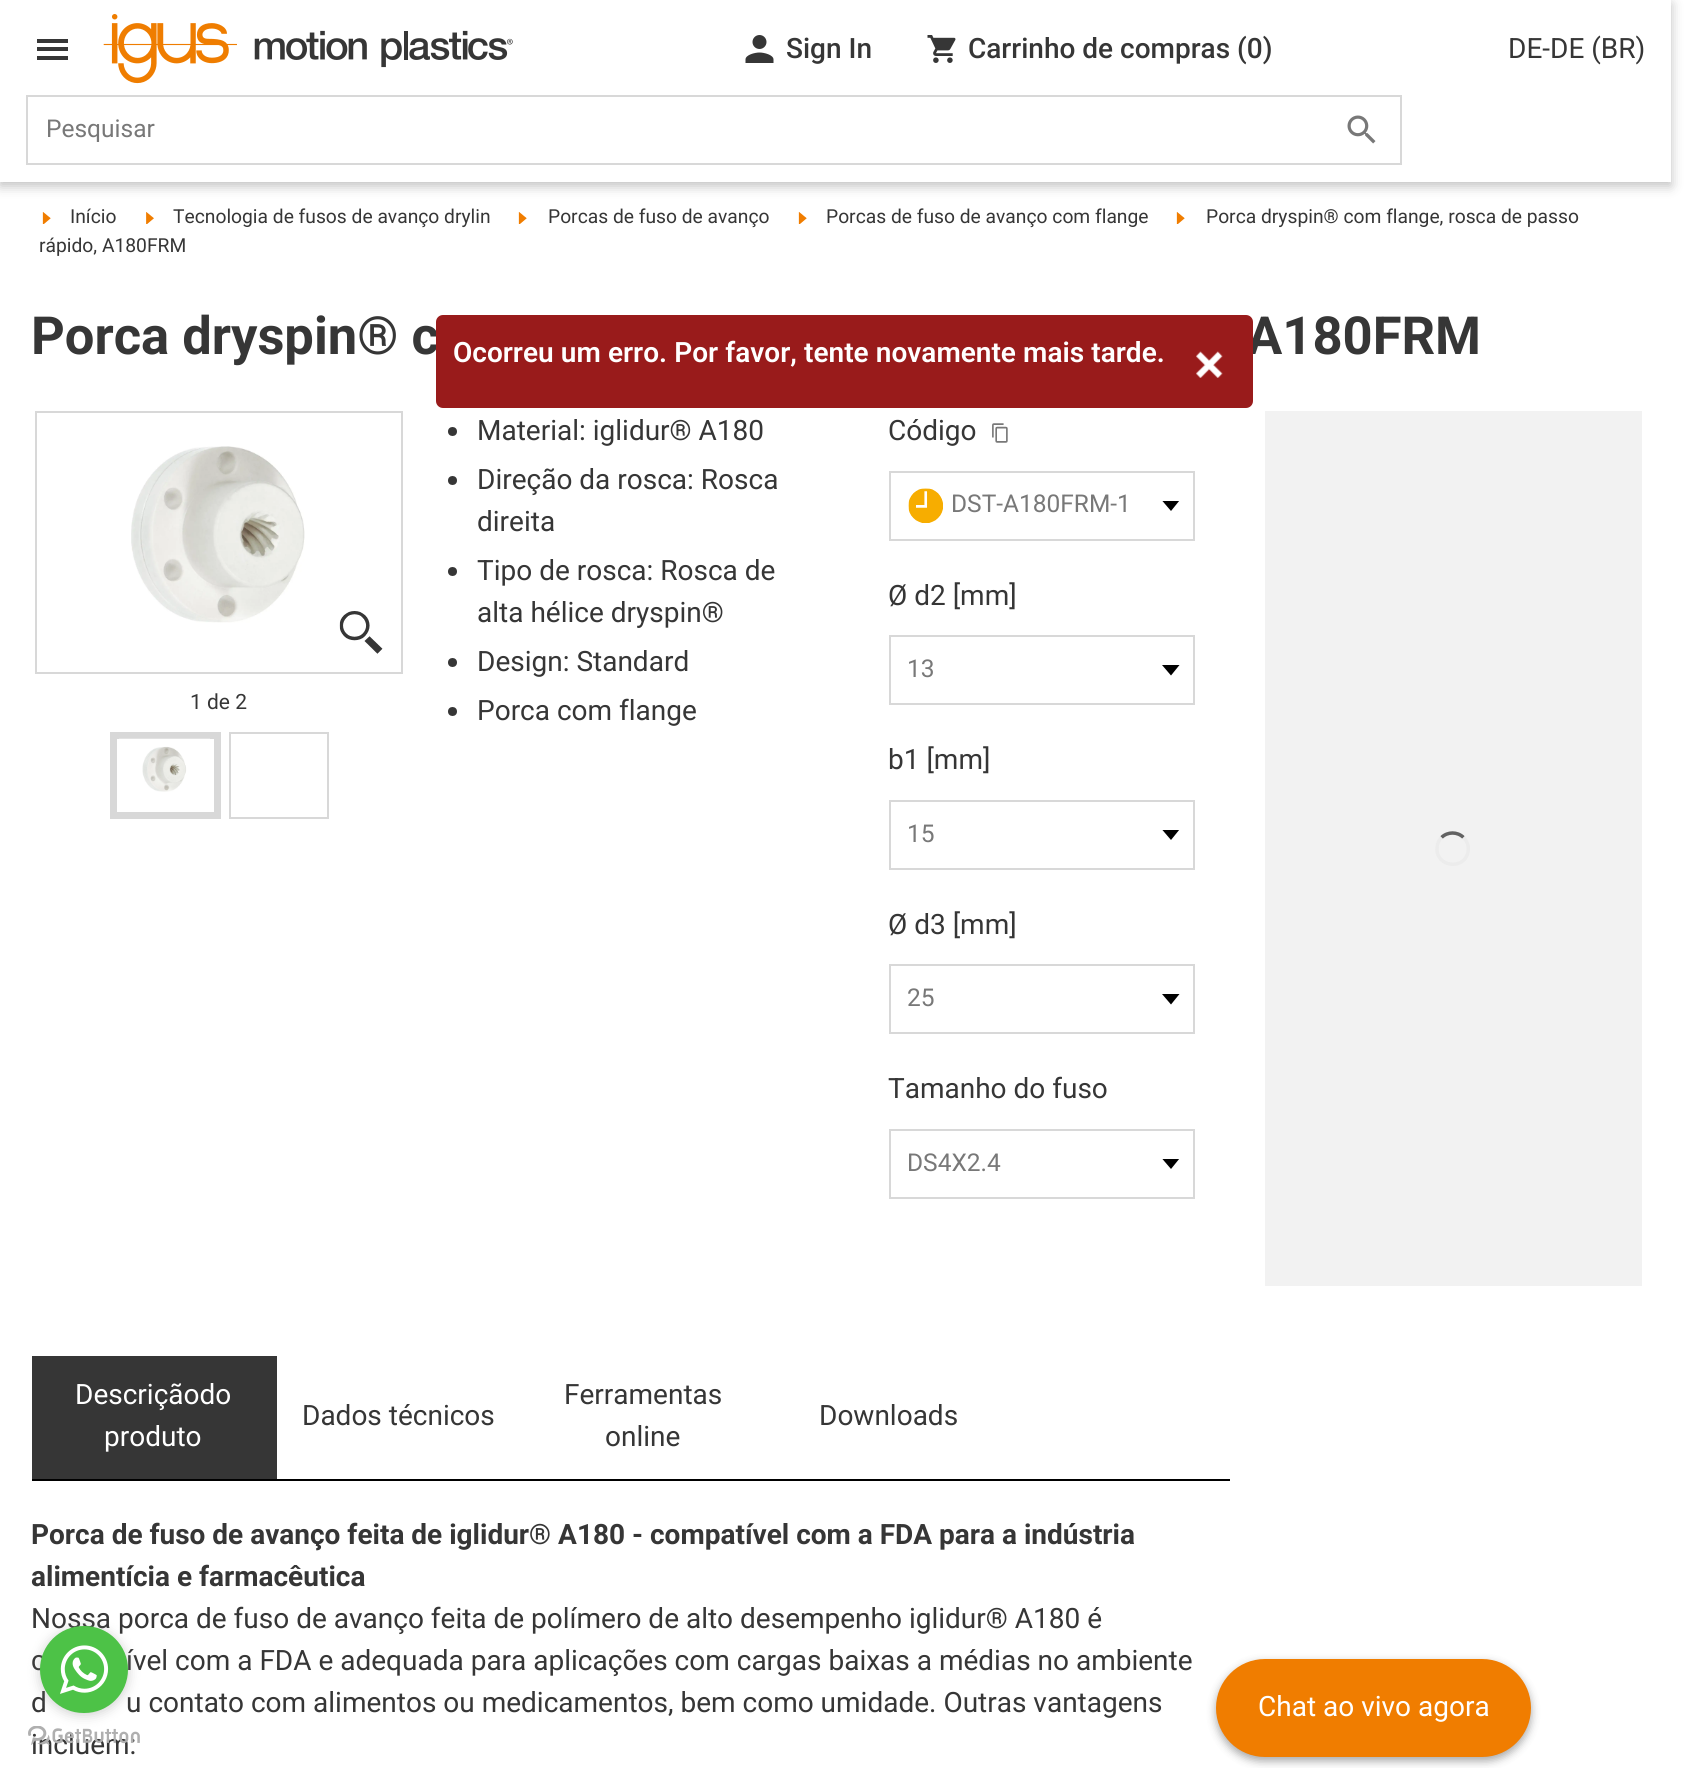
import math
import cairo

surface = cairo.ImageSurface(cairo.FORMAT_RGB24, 1697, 1768)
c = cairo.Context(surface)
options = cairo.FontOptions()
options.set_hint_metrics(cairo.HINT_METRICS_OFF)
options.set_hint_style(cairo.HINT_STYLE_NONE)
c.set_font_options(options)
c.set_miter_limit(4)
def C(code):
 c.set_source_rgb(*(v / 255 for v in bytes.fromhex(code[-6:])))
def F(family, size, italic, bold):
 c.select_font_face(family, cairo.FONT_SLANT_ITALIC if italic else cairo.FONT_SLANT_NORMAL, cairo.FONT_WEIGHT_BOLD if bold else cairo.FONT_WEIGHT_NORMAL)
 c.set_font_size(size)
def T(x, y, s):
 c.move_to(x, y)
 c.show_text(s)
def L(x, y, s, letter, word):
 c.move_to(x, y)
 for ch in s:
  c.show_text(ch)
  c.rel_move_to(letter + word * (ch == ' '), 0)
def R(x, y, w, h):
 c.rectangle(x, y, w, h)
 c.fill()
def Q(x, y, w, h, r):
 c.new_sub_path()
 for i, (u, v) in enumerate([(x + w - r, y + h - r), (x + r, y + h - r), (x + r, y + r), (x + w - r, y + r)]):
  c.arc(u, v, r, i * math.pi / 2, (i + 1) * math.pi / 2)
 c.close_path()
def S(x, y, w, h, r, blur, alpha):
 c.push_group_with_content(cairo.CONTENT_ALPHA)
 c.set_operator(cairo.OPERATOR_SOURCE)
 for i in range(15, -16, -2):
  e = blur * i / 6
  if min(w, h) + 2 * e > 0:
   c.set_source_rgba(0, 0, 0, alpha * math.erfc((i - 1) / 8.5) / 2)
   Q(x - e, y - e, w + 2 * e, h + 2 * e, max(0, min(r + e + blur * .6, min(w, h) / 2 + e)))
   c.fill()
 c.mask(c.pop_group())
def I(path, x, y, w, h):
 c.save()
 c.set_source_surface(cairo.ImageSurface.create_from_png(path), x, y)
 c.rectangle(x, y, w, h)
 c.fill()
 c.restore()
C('ffffff')
c.paint()
c.save()
c.set_fill_rule(cairo.FILL_RULE_EVEN_ODD)
c.new_path()
c.move_to(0,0)
c.line_to(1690,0)
c.line_to(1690,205)
c.line_to(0,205)
c.close_path()
c.move_to(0,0)
c.line_to(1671,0)
c.line_to(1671,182)
c.line_to(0,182)
c.close_path()
c.clip()
C('000000')
S(0,4,1671,182,0,6,.25)
c.restore()
C('363636')
R(37,47,31,4)
R(37,39,31,4)
R(37,56,31,4)
I('1.png',103,14,134,70)
I('2.png',254,30,259,38)
I('3.png',745,35,29,28)
F('Roboto Medium',28,0,0)
T(786,58,'Sign In')
I('4.png',927,35,29,28)
T(968,58,'Carrinho de compras (0)')
F('Roboto',28,0,0)
T(1508,58,'DE-DE (BR)')
c.rectangle(27,96,1374,68)
C('d8d8d8')
c.stroke()
F('Roboto',24.5,0,0)
C('787878')
T(46,137,'Pesquisar')
I('5.png',1347,115,29,29)
I('6.png',1176,212,9,12)
F('Roboto',19.25,0,0)
C('363636')
T(1206,223,'Porca dryspin® com flange, rosca de passo')
T(39,252,'rápido, A180FRM')
I('6.png',42,212,9,12)
T(70,223,'Início')
I('7.png',146,212,8,12)
T(173,223,'Tecnologia de fusos de avanço drylin')
I('6.png',518,212,9,12)
T(548,223,'Porcas de fuso de avanço')
I('6.png',798,212,9,12)
T(826,223,'Porcas de fuso de avanço com flange')
F('Roboto',52.5,0,1)
T(31,354,'Porca dryspin® c')
T(1247,354,'A180FRM')
c.rectangle(36,412,366,261)
C('d8d8d8')
c.stroke()
I('8.png',131,446,174,177)
I('9.png',339,611,44,43)
F('Roboto',21,0,0)
C('363636')
T(190,709,'1 de 2')
c.rectangle(113.5,735.5,104,80)
C('d8d8d8')
c.set_line_width(7)
c.stroke()
I('10.png',119,738,91,54)
c.rectangle(230,733,98,85)
c.set_line_width(2)
c.stroke()
C('363636')
c.arc(452.5,431.5,4.5,0,2 * math.pi)
c.fill()
F('Roboto',28,0,0)
T(477,440,'Material: iglidur® A180')
c.new_path()
c.arc(452.5,480.5,4.5,0,2 * math.pi)
c.fill()
T(477,489,'Direção da rosca: Rosca')
T(477,531,'direita')
c.new_path()
c.arc(452.5,571.5,4.5,0,2 * math.pi)
c.fill()
T(477,580,'Tipo de rosca: Rosca de')
T(477,622,'alta hélice dryspin®')
c.new_path()
c.arc(452.5,662.5,4.5,0,2 * math.pi)
c.fill()
T(477,671,'Design: Standard')
c.new_path()
c.arc(452.5,711.5,4.5,0,2 * math.pi)
c.fill()
T(477,720,'Porca com flange')
T(888,440,'Código')
I('11.png',992,423,16,20)
c.rectangle(890,472,304,68)
C('d8d8d8')
c.stroke()
I('12.png',908,488,35,35)
F('Roboto',24.5,0,0)
C('787878')
T(951,512,'DST-A180FRM-1')
c.save()
c.rectangle(1162,501,18,10)
c.clip()
C('000000')
c.new_path()
c.move_to(1179.5,500.5)
c.line_to(1171,511)
c.line_to(1162,500.5)
c.close_path()
c.fill()
c.restore()
F('Roboto',28,0,0)
C('363636')
T(888,605,'Ø d2 [mm]')
c.rectangle(890,636,304,68)
C('d8d8d8')
c.stroke()
F('Roboto',24.5,0,0)
C('787878')
T(907,677,'13')
C('000000')
c.new_path()
c.move_to(1179.5,665)
c.line_to(1171,675.5)
c.line_to(1162,665)
c.close_path()
c.fill()
F('Roboto',28,0,0)
C('363636')
T(888,769,'b1 [mm]')
c.rectangle(890,801,304,68)
C('d8d8d8')
c.stroke()
F('Roboto',24.5,0,0)
C('787878')
T(907,842,'15')
c.save()
c.rectangle(1162,830,18,10)
c.clip()
C('000000')
c.new_path()
c.move_to(1179.5,829.5)
c.line_to(1171,840)
c.line_to(1162,829.5)
c.close_path()
c.fill()
c.restore()
F('Roboto',28,0,0)
C('363636')
T(888,934,'Ø d3 [mm]')
c.rectangle(890,965,304,68)
C('d8d8d8')
c.stroke()
F('Roboto',24.5,0,0)
C('787878')
T(907,1006,'25')
C('000000')
c.new_path()
c.move_to(1179.5,994)
c.line_to(1171,1004.5)
c.line_to(1162,994)
c.close_path()
c.fill()
F('Roboto',28,0,0)
C('363636')
T(888,1098,'Tamanho do fuso')
c.rectangle(890,1130,304,68)
C('d8d8d8')
c.stroke()
F('Roboto',24.5,0,0)
C('787878')
T(907,1171,'DS4X2.4')
c.save()
c.rectangle(1162,1159,18,10)
c.clip()
C('000000')
c.new_path()
c.move_to(1179.5,1158.5)
c.line_to(1171,1169)
c.line_to(1162,1158.5)
c.close_path()
c.fill()
c.restore()
C('f2f2f2')
R(1265,411,377,875)
c.new_path()
c.move_to(1441.5,837.5)
c.curve_to(1447.5,831.5,1457.5,831.5,1463.5,837.5)
C('626262')
c.set_line_width(3.5)
c.stroke()
c.new_path()
c.move_to(1463.5,837.5)
c.curve_to(1467.5,841.5,1469,846.5,1468,852)
c.curve_to(1464.5,870,1437,867.5,1437,849)
c.curve_to(1437,844.5,1438.5,840.5,1441.5,837.5)
C('ececec')
c.stroke()
C('000000')
R(32,1479,1198,2)
C('363636')
R(32,1356,245,123)
F('Roboto',28,0,0)
C('ffffff')
T(75,1404,'Descriçãodo')
T(104,1446,'produto')
C('363636')
T(302,1425,'Dados técnicos')
T(564,1404,'Ferramentas')
T(605,1446,'online')
T(819,1425,'Downloads')
F('Roboto',28,0,1)
T(31,1544,'Porca de fuso de avanço feita de iglidur® A180 - compatível com a FDA para a indústria')
T(31,1586,'alimentícia e farmacêutica')
F('Roboto',28,0,0)
T(31,1628,'Nossa porca de fuso de avanço feita de polímero de alto desempenho iglidur® A180 é')
T(31,1670,'c')
T(126,1670,'ível com a FDA e adequada para aplicações com cargas baixas a médias no ambiente')
T(31,1712,'d')
T(126,1712,'u contato com alimentos ou medicamentos, bem como umidade. Outras vantagens')
T(31,1754,'incluem:')
C('991b1b')
Q(436,315,817,93,7)
c.fill()
F('Roboto SemiBold',28,0,0)
C('ffffff')
L(453,362,'Ocorreu um erro. Por favor, tente novamente mais tarde.',0,.25)
I('13.png',1196,351,27,27)
I('15.png',28,1726,112,19)
C('888888')
S(40,1628,88,87,43.5,6,.4)
C('4dc247')
Q(40,1626,88,87,43.5)
c.fill()
I('14.png',60,1645,49,49)
C('000000')
S(1216,1663,315,98,49,4.5,.35)
C('f07d00')
Q(1216,1659,315,98,49)
c.fill()
F('Roboto',28,0,0)
C('ffffff')
T(1258,1716,'Chat ao vivo agora')
surface.write_to_png('o.png')
